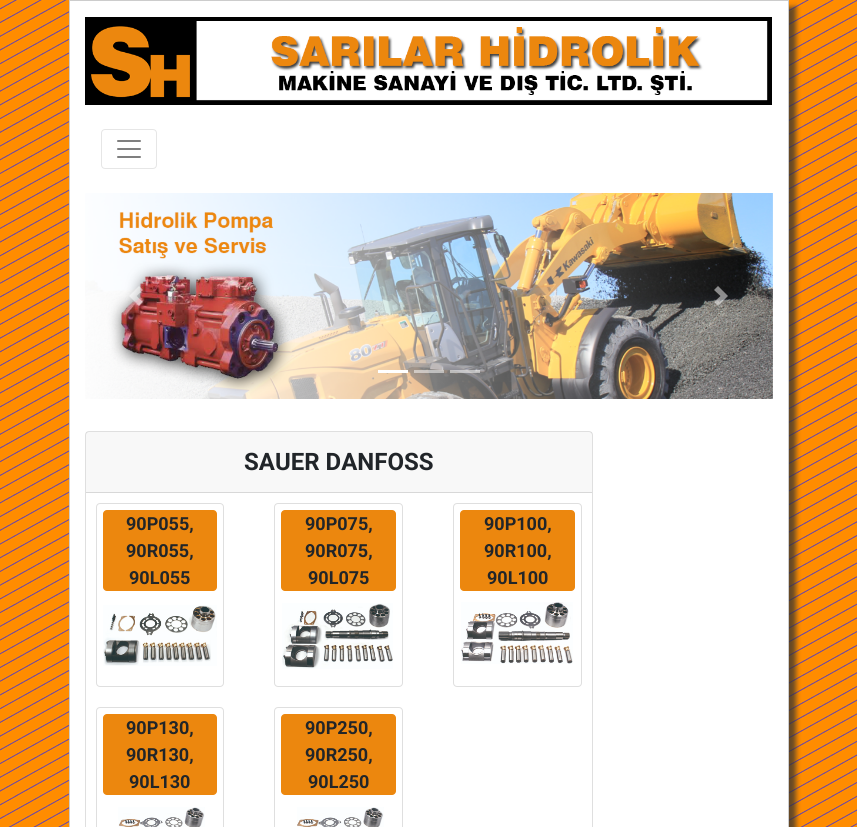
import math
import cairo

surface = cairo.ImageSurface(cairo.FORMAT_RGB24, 857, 827)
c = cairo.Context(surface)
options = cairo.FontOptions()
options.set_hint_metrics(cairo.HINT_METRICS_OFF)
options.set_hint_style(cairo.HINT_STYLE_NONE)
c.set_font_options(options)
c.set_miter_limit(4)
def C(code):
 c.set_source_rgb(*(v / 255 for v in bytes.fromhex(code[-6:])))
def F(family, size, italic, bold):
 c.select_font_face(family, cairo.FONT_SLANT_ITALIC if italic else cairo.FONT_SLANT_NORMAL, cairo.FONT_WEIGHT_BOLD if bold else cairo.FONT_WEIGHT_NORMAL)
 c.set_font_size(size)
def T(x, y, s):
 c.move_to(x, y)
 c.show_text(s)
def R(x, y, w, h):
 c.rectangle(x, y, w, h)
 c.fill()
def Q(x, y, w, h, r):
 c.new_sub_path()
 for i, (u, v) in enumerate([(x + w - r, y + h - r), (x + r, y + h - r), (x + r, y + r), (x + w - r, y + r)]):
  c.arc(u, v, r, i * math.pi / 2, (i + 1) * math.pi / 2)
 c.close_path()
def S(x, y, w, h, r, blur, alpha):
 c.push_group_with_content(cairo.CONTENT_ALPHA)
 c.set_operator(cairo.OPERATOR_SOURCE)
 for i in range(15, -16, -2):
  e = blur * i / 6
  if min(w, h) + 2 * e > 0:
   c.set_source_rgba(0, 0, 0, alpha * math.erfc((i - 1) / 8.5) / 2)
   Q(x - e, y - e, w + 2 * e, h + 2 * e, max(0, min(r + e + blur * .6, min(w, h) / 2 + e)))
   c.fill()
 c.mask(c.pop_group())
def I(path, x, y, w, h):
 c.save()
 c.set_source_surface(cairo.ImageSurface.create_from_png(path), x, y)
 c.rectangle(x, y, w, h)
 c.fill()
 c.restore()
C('ffffff')
c.paint()
I('1.png',0,0,857,827)
C('323232')
S(76,7,720,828,0,2.5,.75)
C('ffffff')
c.rectangle(69.5,.5,719,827)
c.fill_preserve()
C('cccccc')
c.set_line_width(1)
c.stroke()
I('2.png',85,17,687,88)
Q(101.5,129.5,55,39,3.5)
C('e6e6e6')
c.stroke()
I('3.png',117,140,24,18)
I('4.png',85,193,688,206)
c.set_source_rgba(1,1,1,0.5)
c.new_path()
c.move_to(139,286)
c.line_to(129,296)
c.line_to(139,306)
c.line_to(143,302)
c.line_to(136.5,296)
c.line_to(143,290)
c.close_path()
c.fill()
c.new_path()
c.move_to(718,286)
c.line_to(714,290)
c.line_to(720.5,296)
c.line_to(714,302)
c.line_to(718,306)
c.line_to(728,296)
c.close_path()
c.fill()
C('ffffff')
R(378,370,30,3)
c.set_source_rgba(1,1,1,0.5)
R(414,370,30,3)
R(450,370,30,3)
Q(85.5,431.5,507,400,3.5)
C('dfdfdf')
c.stroke()
c.set_source_rgba(0,0,0,0.03)
R(86,432,506,60)
C('d8d8d8')
R(86,492,506,1)
F('Roboto',24,0,1)
C('212529')
T(244,470,'SAUER DANFOSS')
Q(96.5,503.5,127,183,3.5)
C('dfdfdf')
c.stroke()
C('ec870e')
Q(103,510,114,81,4)
c.fill()
F('Roboto',18,0,1)
C('212529')
T(126,530,'90P055,')
T(126,557,'90R055,')
T(129,584,'90L055')
I('5.png',103,605,114,61)
Q(274.5,503.5,128,183,3.5)
C('dfdfdf')
c.stroke()
C('ec870e')
Q(281,510,115,81,4)
c.fill()
C('212529')
T(305,530,'90P075,')
T(305,557,'90R075,')
T(308,584,'90L075')
I('6.png',282,603,111,66)
Q(453.5,503.5,128,183,3.5)
C('dfdfdf')
c.stroke()
C('ec870e')
Q(460,510,115,81,4)
c.fill()
C('212529')
T(484,530,'90P100,')
T(484,557,'90R100,')
T(487,584,'90L100')
I('7.png',461,602,112,62)
Q(96.5,707.5,127,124,3.5)
C('dfdfdf')
c.stroke()
C('ec870e')
Q(103,714,114,81,4)
c.fill()
C('212529')
T(126,734,'90P130,')
T(126,761,'90R130,')
T(129,788,'90L130')
I('8.png',118,807,87,20)
Q(274.5,707.5,128,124,3.5)
C('dfdfdf')
c.stroke()
C('ec870e')
Q(281,714,115,81,4)
c.fill()
C('212529')
T(305,734,'90P250,')
T(305,761,'90R250,')
T(308,788,'90L250')
I('9.png',297,807,87,20)
surface.write_to_png('o.png')
